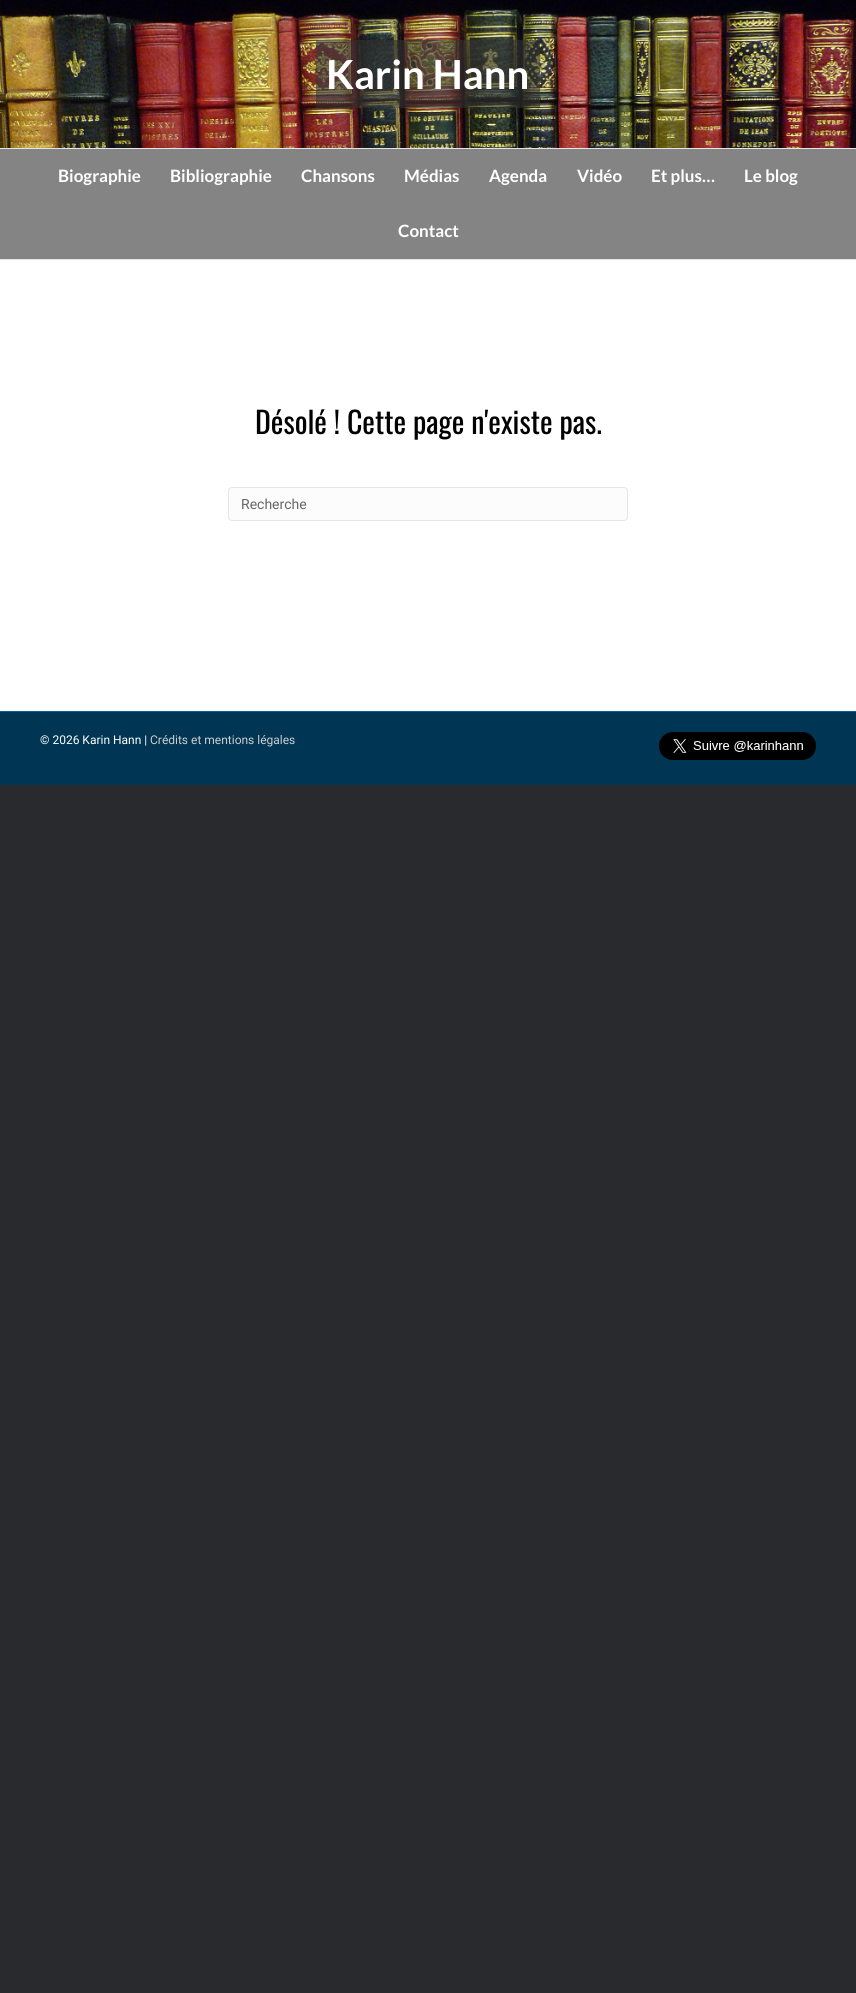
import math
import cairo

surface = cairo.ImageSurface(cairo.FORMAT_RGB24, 856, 1993)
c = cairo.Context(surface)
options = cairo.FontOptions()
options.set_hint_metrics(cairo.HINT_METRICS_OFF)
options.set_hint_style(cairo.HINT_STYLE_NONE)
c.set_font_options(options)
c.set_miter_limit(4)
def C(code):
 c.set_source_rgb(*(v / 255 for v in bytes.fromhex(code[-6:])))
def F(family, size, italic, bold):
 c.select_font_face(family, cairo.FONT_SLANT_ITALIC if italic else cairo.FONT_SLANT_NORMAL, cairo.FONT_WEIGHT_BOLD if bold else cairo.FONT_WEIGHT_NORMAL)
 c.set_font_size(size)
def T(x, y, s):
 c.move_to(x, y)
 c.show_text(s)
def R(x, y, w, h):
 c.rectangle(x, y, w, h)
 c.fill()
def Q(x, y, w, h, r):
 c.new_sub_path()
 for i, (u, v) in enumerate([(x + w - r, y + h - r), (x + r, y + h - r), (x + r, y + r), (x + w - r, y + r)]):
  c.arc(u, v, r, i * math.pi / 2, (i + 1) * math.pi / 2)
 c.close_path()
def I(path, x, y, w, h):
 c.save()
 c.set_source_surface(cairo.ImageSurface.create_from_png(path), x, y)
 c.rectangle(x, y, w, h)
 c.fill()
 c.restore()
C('282a2e')
c.paint()
I('1.png',0,0,856,148)
c.set_source_rgba(0.196,0.196,0.196,0.6)
R(316,40,224,68)
F('Lato',40,0,1)
C('ffffff')
T(326,89,'Karin Hann')
C('e6e6e6')
R(0,148,856,1)
R(0,259,856,1)
C('848484')
R(0,149,856,110)
F('Lato',17,0,1)
C('ffffff')
T(58,182,'Biographie')
T(170,182,'Bibliographie')
T(301,182,'Chansons')
T(404,182,'Médias')
T(489,182,'Agenda')
T(577,182,'Vidéo')
T(651,182,'Et plus…')
T(744,182,'Le blog')
T(398,237,'Contact')
R(0,260,856,451)
F('Oswald',30,0,0)
C('000000')
T(255,434,'Désolé ! Cette page n\'existe pas.')
C('fcfcfc')
Q(228.5,487.5,399,33,3.5)
c.fill_preserve()
C('e6e6e6')
c.set_line_width(1)
c.stroke()
F('Roboto',14,0,0)
C('666666')
T(241,509,'Recherche')
C('003554')
R(0,712,856,73)
C('005f96')
R(0,711,856,1)
F('Roboto',12,0,0)
C('ffffff')
T(40,744,'© 2026 Karin Hann |')
C('cecece')
T(150,744,'Crédits et mentions légales')
I('2.png',659,732,157,28)
surface.write_to_png('o.png')
